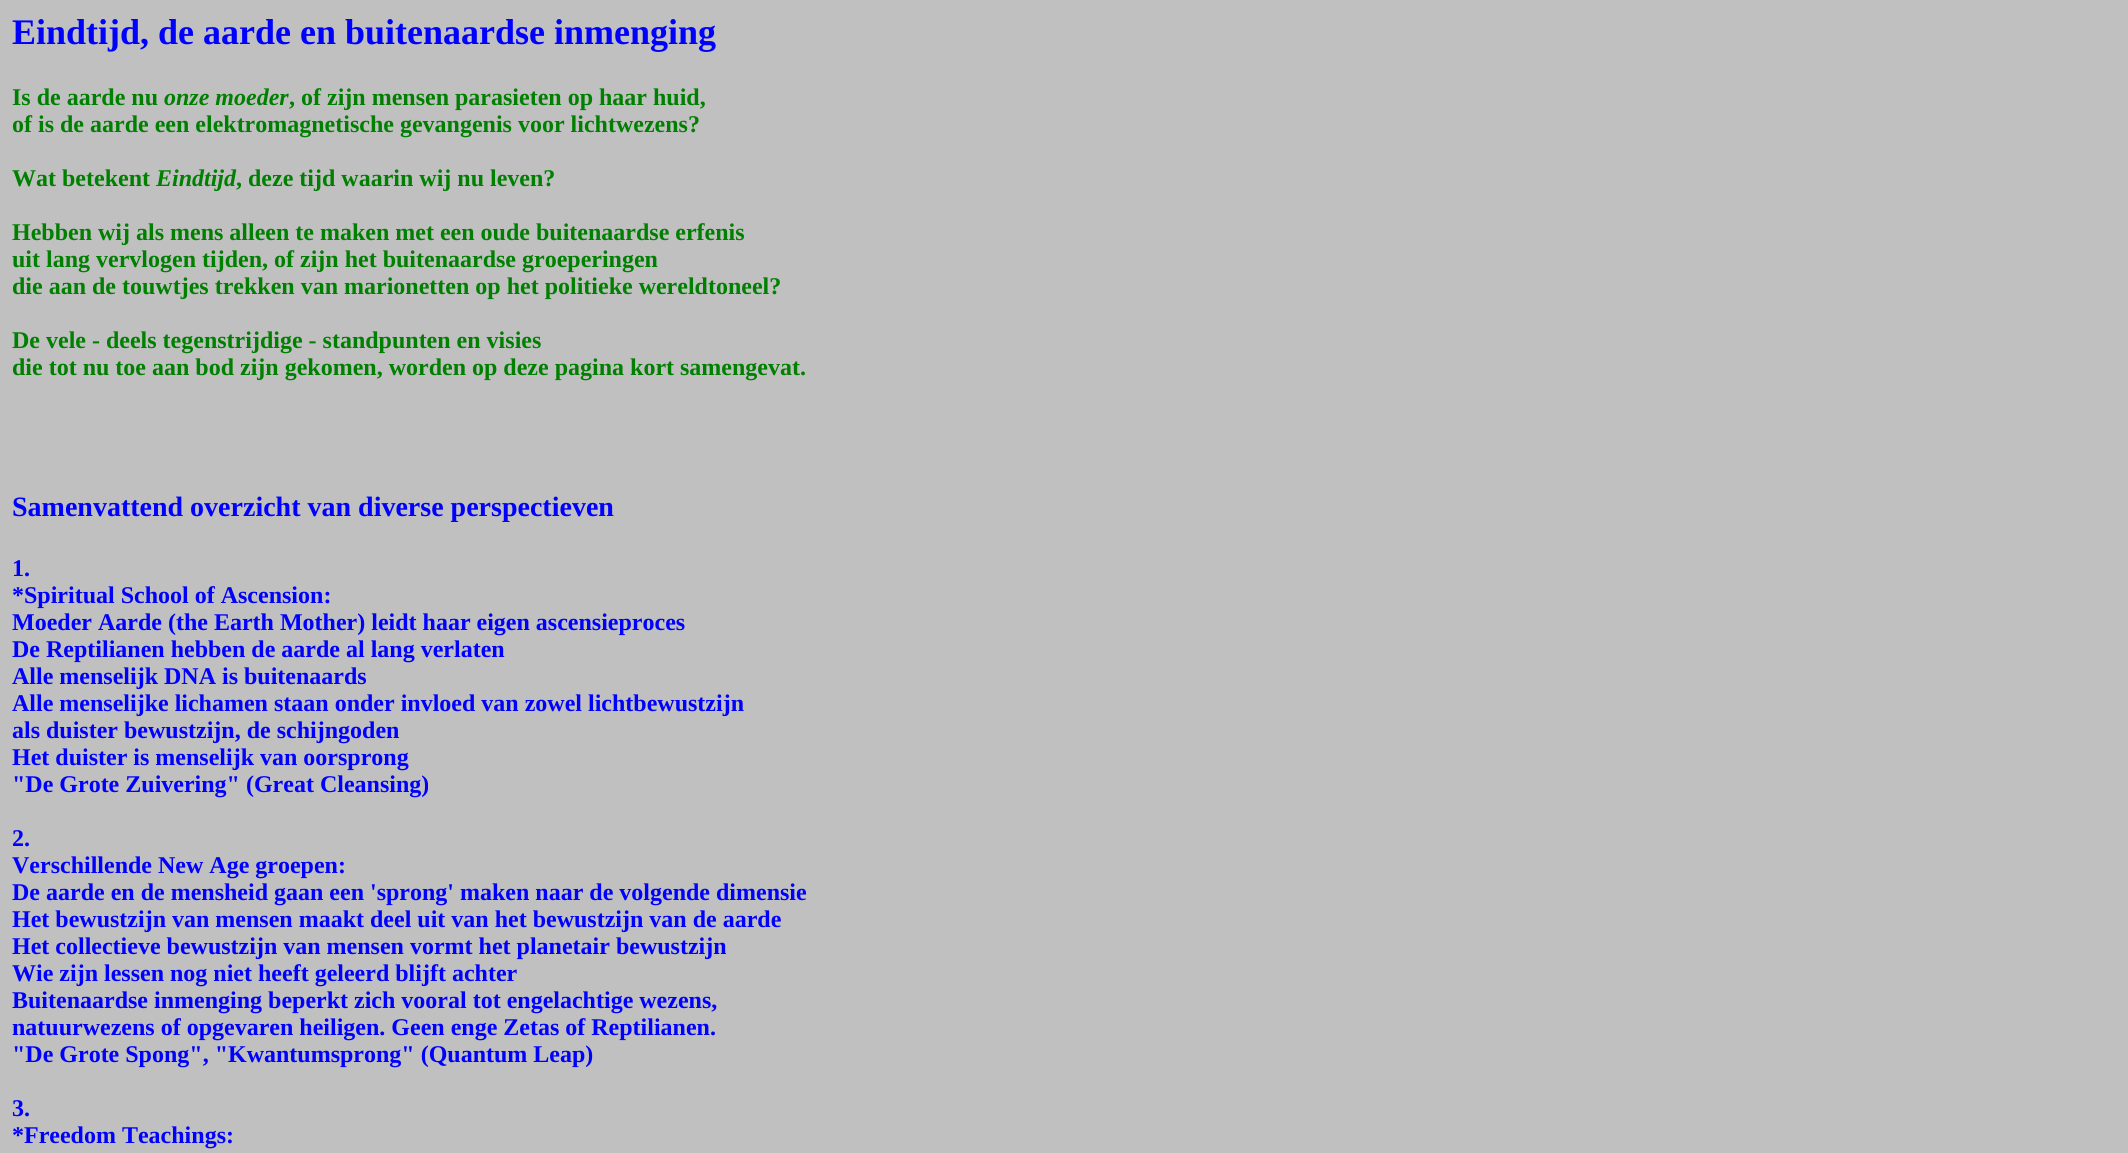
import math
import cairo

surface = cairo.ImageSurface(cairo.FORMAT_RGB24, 2128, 1153)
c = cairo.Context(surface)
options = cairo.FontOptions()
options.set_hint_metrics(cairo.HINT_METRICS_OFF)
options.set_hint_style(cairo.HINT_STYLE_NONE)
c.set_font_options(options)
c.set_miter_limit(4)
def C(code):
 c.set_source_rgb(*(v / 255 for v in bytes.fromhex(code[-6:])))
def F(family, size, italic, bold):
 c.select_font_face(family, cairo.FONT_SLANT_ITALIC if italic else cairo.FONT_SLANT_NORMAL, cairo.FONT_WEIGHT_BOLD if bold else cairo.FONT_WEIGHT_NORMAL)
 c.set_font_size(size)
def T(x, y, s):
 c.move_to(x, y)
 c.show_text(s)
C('c0c0c0')
c.paint()
F('Liberation Serif',36,0,1)
C('0000ff')
T(12,44,'Eindtijd, de aarde en buitenaardse inmenging')
F('Liberation Serif',24,0,1)
C('008000')
T(12,105,'Is de aarde nu')
F('Liberation Serif',24,1,1)
T(164,105,'onze moeder')
F('Liberation Serif',24,0,1)
T(289,105,', of zijn mensen parasieten op haar huid,')
T(12,132,'of is de aarde een elektromagnetische gevangenis voor lichtwezens?')
T(12,186,'Wat betekent')
F('Liberation Serif',24,1,1)
T(156,186,'Eindtijd')
F('Liberation Serif',24,0,1)
T(236,186,', deze tijd waarin wij nu leven?')
T(12,240,'Hebben wij als mens alleen te maken met een oude buitenaardse erfenis')
T(12,267,'uit lang vervlogen tijden, of zijn het buitenaardse groeperingen')
T(12,294,'die aan de touwtjes trekken van marionetten op het politieke wereldtoneel?')
T(12,348,'De vele - deels tegenstrijdige - standpunten en visies')
T(12,375,'die tot nu toe aan bod zijn gekomen, worden op deze pagina kort samengevat.')
F('Liberation Serif',28,0,1)
C('0000ff')
T(12,516,'Samenvattend overzicht van diverse perspectieven')
F('Liberation Serif',24,0,1)
T(12,576,'1.')
T(12,603,'*Spiritual School of Ascension:')
T(12,630,'Moeder Aarde (the Earth Mother) leidt haar eigen ascensieproces')
T(12,657,'De Reptilianen hebben de aarde al lang verlaten')
T(12,684,'Alle menselijk DNA is buitenaards')
T(12,711,'Alle menselijke lichamen staan onder invloed van zowel lichtbewustzijn')
T(12,738,'als duister bewustzijn, de schijngoden')
T(12,765,'Het duister is menselijk van oorsprong')
T(12,792,'"De Grote Zuivering" (Great Cleansing)')
T(12,846,'2.')
T(12,873,'Verschillende New Age groepen:')
T(12,900,'De aarde en de mensheid gaan een \'sprong\' maken naar de volgende dimensie')
T(12,927,'Het bewustzijn van mensen maakt deel uit van het bewustzijn van de aarde')
T(12,954,'Het collectieve bewustzijn van mensen vormt het planetair bewustzijn')
T(12,981,'Wie zijn lessen nog niet heeft geleerd blijft achter')
T(12,1008,'Buitenaardse inmenging beperkt zich vooral tot engelachtige wezens,')
T(12,1035,'natuurwezens of opgevaren heiligen. Geen enge Zetas of Reptilianen.')
T(12,1062,'"De Grote Spong", "Kwantumsprong" (Quantum Leap)')
T(12,1116,'3.')
T(12,1143,'*Freedom Teachings:')
surface.write_to_png('o.png')
